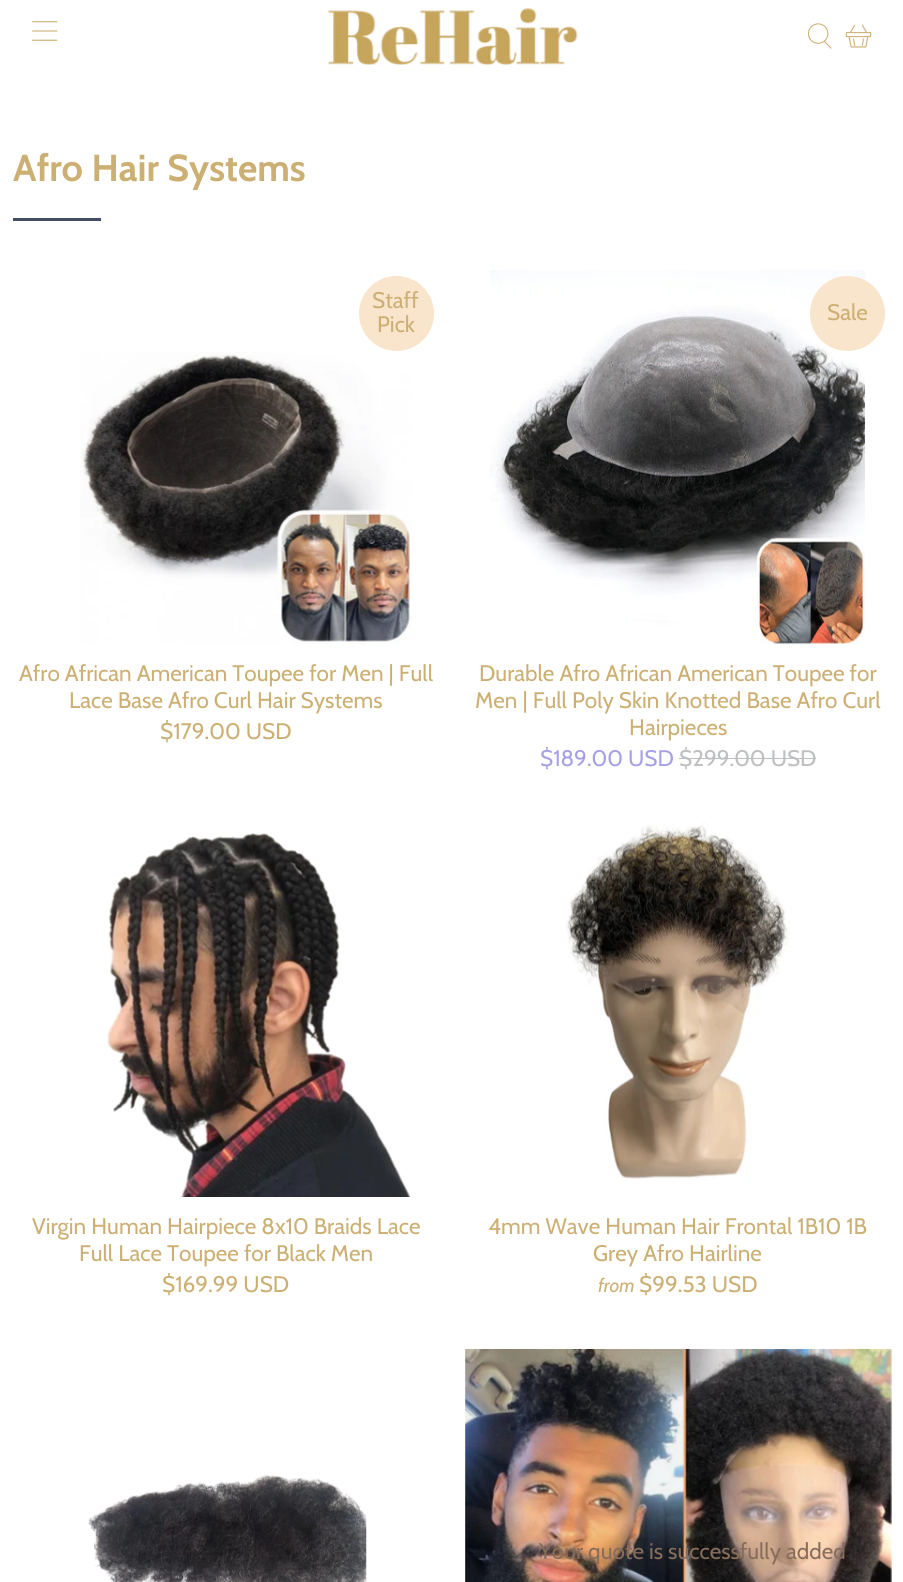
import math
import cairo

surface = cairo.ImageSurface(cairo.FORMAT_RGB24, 903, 1582)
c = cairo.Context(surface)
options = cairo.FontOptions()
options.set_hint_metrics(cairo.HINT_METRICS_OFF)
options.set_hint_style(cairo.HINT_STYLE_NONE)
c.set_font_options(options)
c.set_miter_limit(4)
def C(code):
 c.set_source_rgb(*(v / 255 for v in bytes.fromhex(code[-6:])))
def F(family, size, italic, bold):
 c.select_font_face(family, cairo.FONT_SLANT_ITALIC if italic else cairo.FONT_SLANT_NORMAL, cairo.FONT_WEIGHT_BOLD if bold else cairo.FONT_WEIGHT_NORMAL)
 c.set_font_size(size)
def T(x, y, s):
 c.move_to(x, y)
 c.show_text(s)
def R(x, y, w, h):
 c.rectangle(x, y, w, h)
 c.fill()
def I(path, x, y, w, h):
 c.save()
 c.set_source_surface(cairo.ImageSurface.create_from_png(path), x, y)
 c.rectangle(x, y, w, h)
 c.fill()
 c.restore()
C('ffffff')
c.paint()
I('1.png',32,21,26,20)
I('2.png',328,8,250,57)
I('3.png',807,23,25,26)
I('4.png',845,24,27,24)
F('Cabin',37.5,0,1)
C('ccaf73')
T(13,181,'Afro Hair Systems')
C('414e66')
R(13,218,88,3)
C('f9e4cc')
c.new_path()
c.arc(396.5,313.5,37.5,0,2 * math.pi)
c.fill()
F('Cabin',22.5,0,0)
C('ccaf73')
T(372,308,'Staff')
T(377,332,'Pick')
I('5.png',80,352,333,293)
T(19,681,'Afro African American Toupee for Men | Full')
T(69,708,'Lace Base Afro Curl Hair Systems')
T(160,739,'$179.00 USD')
I('6.png',490,270,375,375)
C('f9e4cc')
c.arc(847.5,313.5,37.5,0,2 * math.pi)
c.fill()
C('ccaf73')
T(827,320,'Sale')
T(479,681,'Durable Afro African American Toupee for')
T(475,708,'Men | Full Poly Skin Knotted Base Afro Curl')
T(629,735,'Hairpieces')
C('a79fe7')
T(540,766,'$189.00 USD')
C('bebfc1')
T(679,766,'$299.00 USD')
R(679,758,137,1)
I('7.png',107,833,304,364)
C('ccaf73')
T(32,1234,'Virgin Human Hairpiece 8x10 Braids Lace')
T(79,1261,'Full Lace Toupee for Black Men')
T(162,1292,'$169.99 USD')
I('8.png',566,822,224,360)
T(488,1234,'4mm Wave Human Hair Frontal 1B10 1B')
T(593,1261,'Grey Afro Hairline')
F('Cabin',19,1,0)
T(598,1292,'from')
F('Cabin',22.5,0,0)
T(639,1292,'$99.53 USD')
I('9.png',88,1474,279,108)
I('10.png',465,1349,427,233)
C('876d5c')
T(539,1559,'Your quote is successfully added')
surface.write_to_png('o.png')
